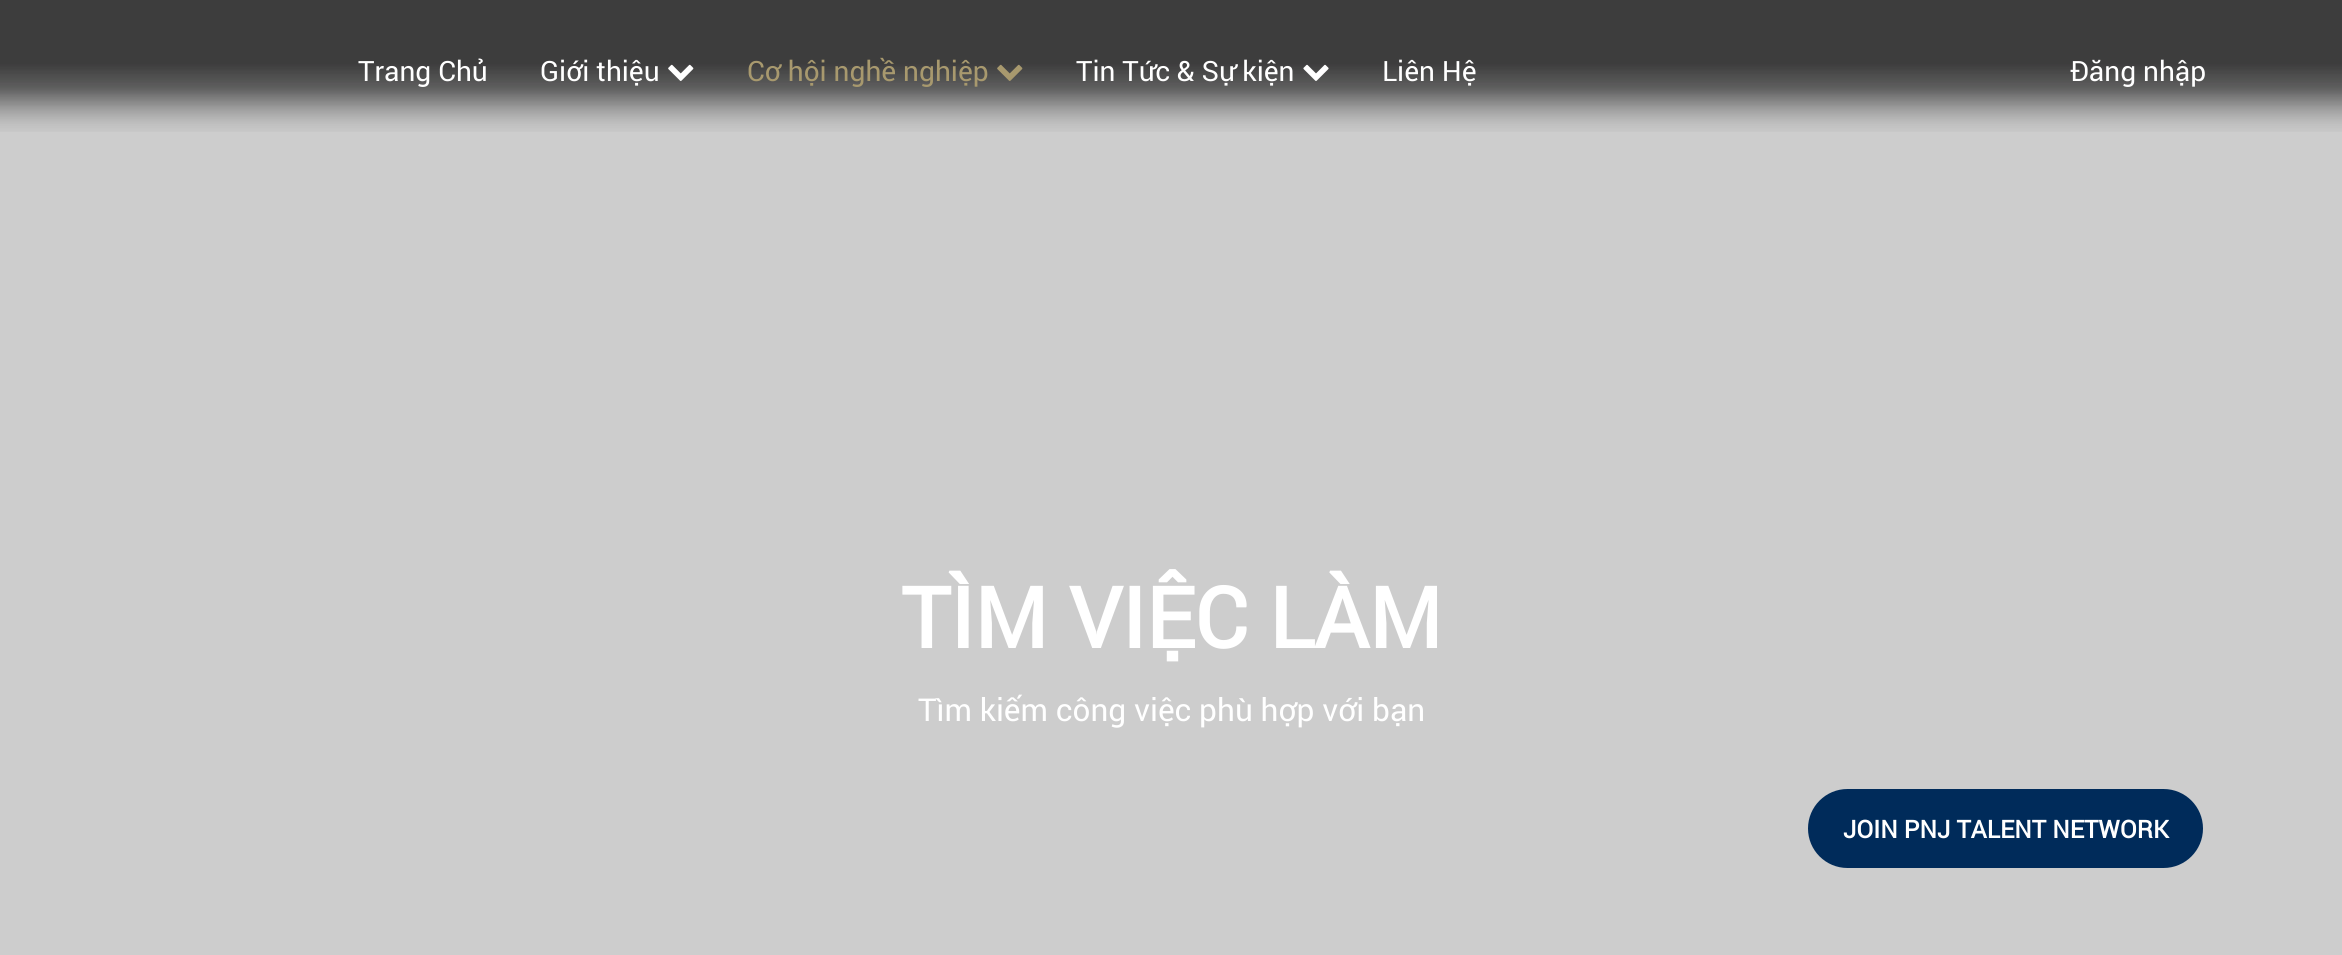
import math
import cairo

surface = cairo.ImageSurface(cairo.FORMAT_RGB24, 2342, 955)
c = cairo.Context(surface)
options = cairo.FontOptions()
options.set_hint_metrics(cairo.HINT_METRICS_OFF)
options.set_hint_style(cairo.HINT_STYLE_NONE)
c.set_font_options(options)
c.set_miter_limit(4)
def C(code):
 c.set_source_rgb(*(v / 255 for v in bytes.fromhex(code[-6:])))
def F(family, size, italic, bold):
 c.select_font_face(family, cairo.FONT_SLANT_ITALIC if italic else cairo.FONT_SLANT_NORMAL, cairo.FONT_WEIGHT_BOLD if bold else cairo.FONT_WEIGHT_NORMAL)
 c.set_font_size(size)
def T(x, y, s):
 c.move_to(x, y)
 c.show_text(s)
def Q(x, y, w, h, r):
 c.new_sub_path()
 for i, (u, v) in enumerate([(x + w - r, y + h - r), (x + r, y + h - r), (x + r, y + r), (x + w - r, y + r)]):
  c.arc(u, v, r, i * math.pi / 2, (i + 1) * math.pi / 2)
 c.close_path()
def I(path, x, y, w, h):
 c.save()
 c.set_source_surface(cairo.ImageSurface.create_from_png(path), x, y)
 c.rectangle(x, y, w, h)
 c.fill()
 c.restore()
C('cdcdcd')
c.paint()
I('1.png',0,0,2342,132)
F('Roboto',28,0,0)
C('ffffff')
T(358,81,'Trang Chủ')
T(540,81,'Giới thiệu')
I('2.png',668,64,26,17)
C('a8996e')
T(747,81,'Cơ hội nghề nghiệp')
I('3.png',997,64,26,17)
C('ffffff')
T(1076,81,'Tin Tức & Sự kiện')
I('4.png',1303,64,26,17)
T(1382,81,'Liên Hệ')
T(2070,81,'Đăng nhập')
F('Roboto',84,0,1)
T(901,648,'TÌM VIỆC LÀM')
F('Roboto',31.5,0,0)
T(918,721,'Tìm kiếm công việc phù hợp với bạn')
C('002b5a')
Q(1808,789,395,79,39.5)
c.fill()
F('Roboto',24.5,0,1)
C('ffffff')
T(1843,838,'JOIN PNJ TALENT NETWORK')
surface.write_to_png('o.png')
